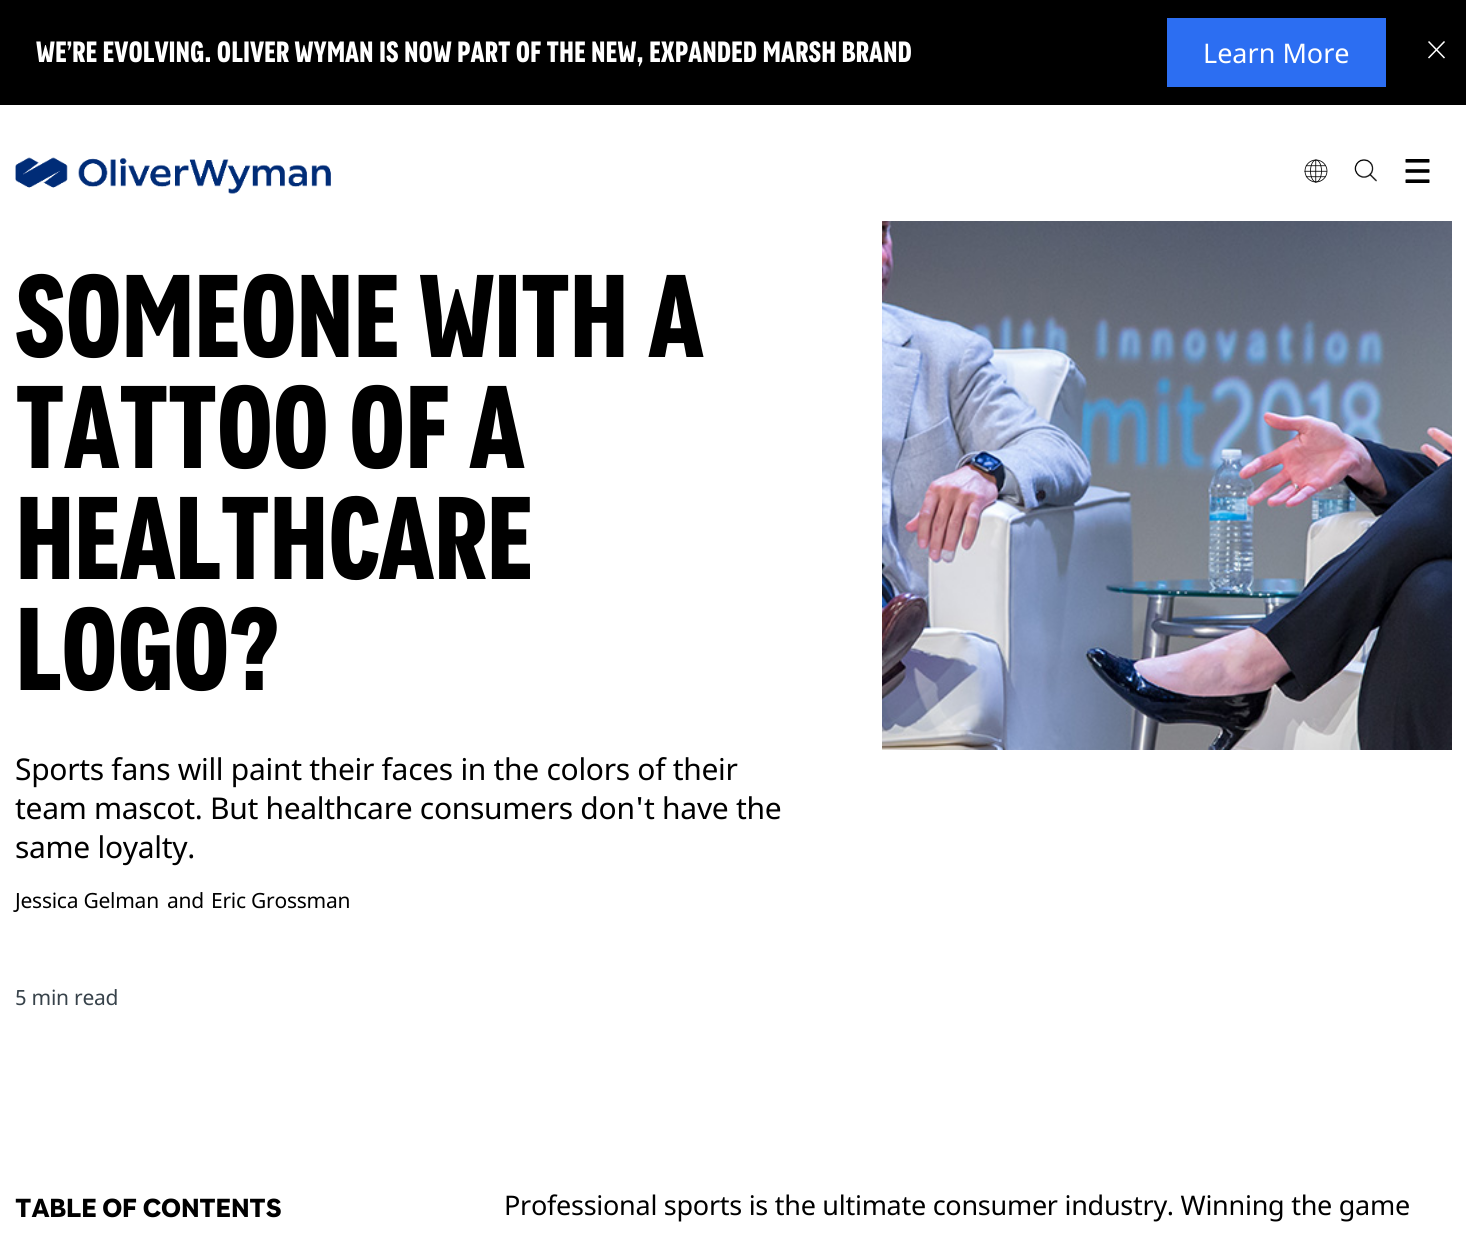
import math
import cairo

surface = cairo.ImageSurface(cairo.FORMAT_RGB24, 1466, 1234)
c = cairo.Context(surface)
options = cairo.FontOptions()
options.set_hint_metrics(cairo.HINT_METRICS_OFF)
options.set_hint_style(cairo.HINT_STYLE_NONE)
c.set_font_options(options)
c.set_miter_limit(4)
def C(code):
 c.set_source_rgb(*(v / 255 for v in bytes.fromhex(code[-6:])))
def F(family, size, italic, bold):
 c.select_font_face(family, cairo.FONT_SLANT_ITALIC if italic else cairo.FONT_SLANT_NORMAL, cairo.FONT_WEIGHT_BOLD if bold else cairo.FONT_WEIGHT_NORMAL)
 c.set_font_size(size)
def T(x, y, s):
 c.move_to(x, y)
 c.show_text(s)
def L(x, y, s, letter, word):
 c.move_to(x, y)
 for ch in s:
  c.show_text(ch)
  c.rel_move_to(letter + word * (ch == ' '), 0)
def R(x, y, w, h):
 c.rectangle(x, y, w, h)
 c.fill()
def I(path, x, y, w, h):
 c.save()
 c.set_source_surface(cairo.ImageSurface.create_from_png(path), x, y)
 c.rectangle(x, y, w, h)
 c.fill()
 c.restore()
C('ffffff')
c.paint()
C('000000')
R(0,0,1466,105)
F('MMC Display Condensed',27,0,1)
C('ffffff')
T(36,62,'We’re evolving. Oliver Wyman is now part of the new, expanded Marsh brand')
C('2c6ef2')
R(1167,18,219,69)
F('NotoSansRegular',27,0,0)
C('ffffff')
T(1203,63,'Learn More')
c.new_path()
c.move_to(1444.5,41.5)
c.line_to(1428.5,58)
c.move_to(1444.5,58)
c.line_to(1428.5,41.5)
c.set_line_width(1.5)
c.stroke()
I('1.png',15,157,316,37)
I('2.png',1304,159,24,24)
I('3.png',1354,159,23,23)
I('4.png',1405,159,25,24)
F('MMC Display Condensed',108,0,1)
C('000000')
L(15,357,'SOMEONE WITH A',-1.1,0)
L(15,468,'TATTOO OF A',-1.1,0)
L(15,579,'HEALTHCARE',-1.1,0)
L(15,690,'LOGO?',-1.1,0)
F('NotoSansRegular',30,0,0)
L(15,780,'Sports fans will paint their faces in the colors of their',-.3,0)
L(15,819,'team mascot. But healthcare consumers don\'t have the',-.3,0)
L(15,858,'same loyalty.',-.3,0)
F('NotoSansRegular',21,0,0)
L(15,908,'Jessica Gelman',-.25,0)
L(167,908,'and',-.25,0)
L(211,908,'Eric Grossman',-.25,0)
C('37424a')
L(15,1005,'5 min read',-.25,0)
I('5.png',882,221,570,529)
F('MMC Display',24,0,1)
C('000000')
T(15,1217,'TABLE OF CONTENTS')
F('NotoSansRegular',27,0,0)
L(504,1215,'Professional sports is the ultimate consumer industry. Winning the game',-.27,0)
surface.write_to_png('o.png')
